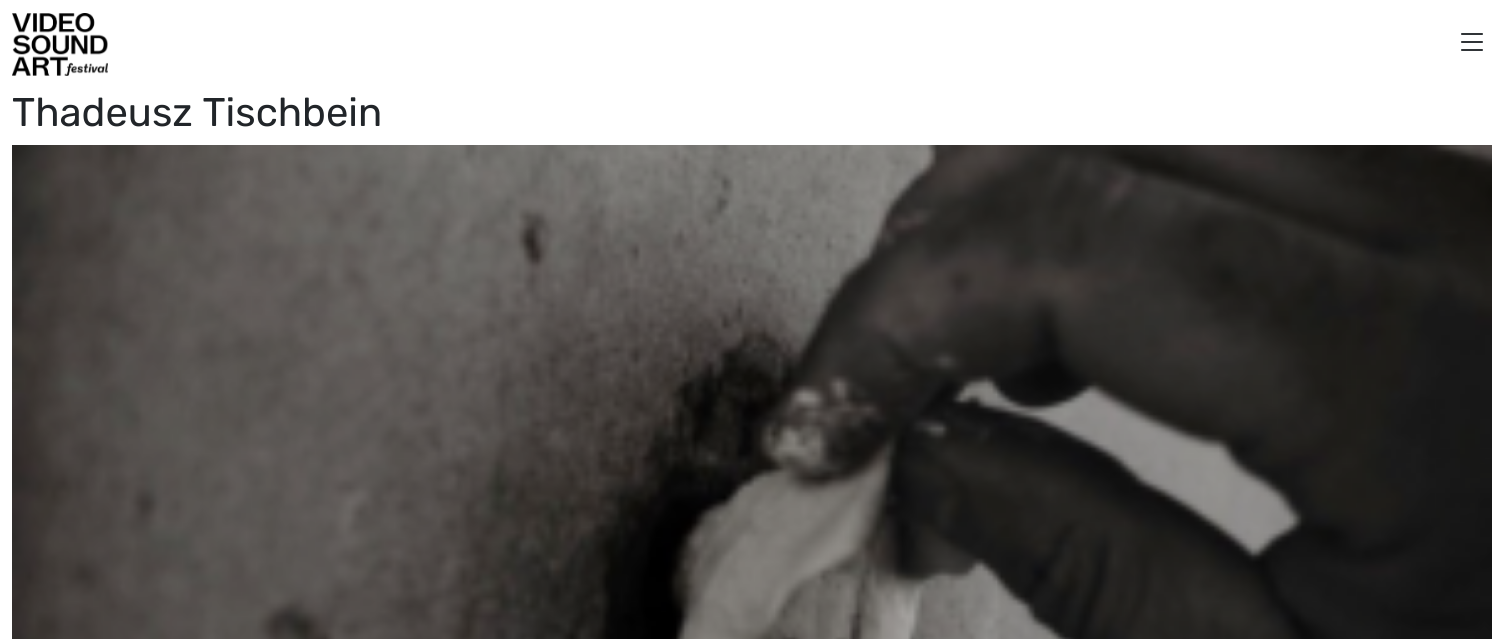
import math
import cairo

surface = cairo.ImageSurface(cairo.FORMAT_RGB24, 1504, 639)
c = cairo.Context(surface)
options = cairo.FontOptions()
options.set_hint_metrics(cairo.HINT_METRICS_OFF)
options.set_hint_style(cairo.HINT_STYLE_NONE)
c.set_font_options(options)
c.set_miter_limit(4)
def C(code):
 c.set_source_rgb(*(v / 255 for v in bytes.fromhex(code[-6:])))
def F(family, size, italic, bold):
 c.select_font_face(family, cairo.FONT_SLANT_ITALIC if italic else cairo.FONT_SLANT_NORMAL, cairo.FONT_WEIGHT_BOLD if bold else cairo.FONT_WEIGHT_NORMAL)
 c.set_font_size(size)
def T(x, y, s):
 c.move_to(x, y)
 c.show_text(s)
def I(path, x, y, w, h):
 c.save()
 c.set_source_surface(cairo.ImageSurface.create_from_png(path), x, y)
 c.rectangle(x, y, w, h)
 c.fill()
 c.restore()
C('ffffff')
c.paint()
I('1.png',12,13,96,63)
I('2.png',1461,33,22,18)
F('Rubik',40,0,0)
C('212529')
T(12,126,'Thadeusz Tischbein')
I('3.png',12,145,1480,494)
surface.write_to_png('o.png')
